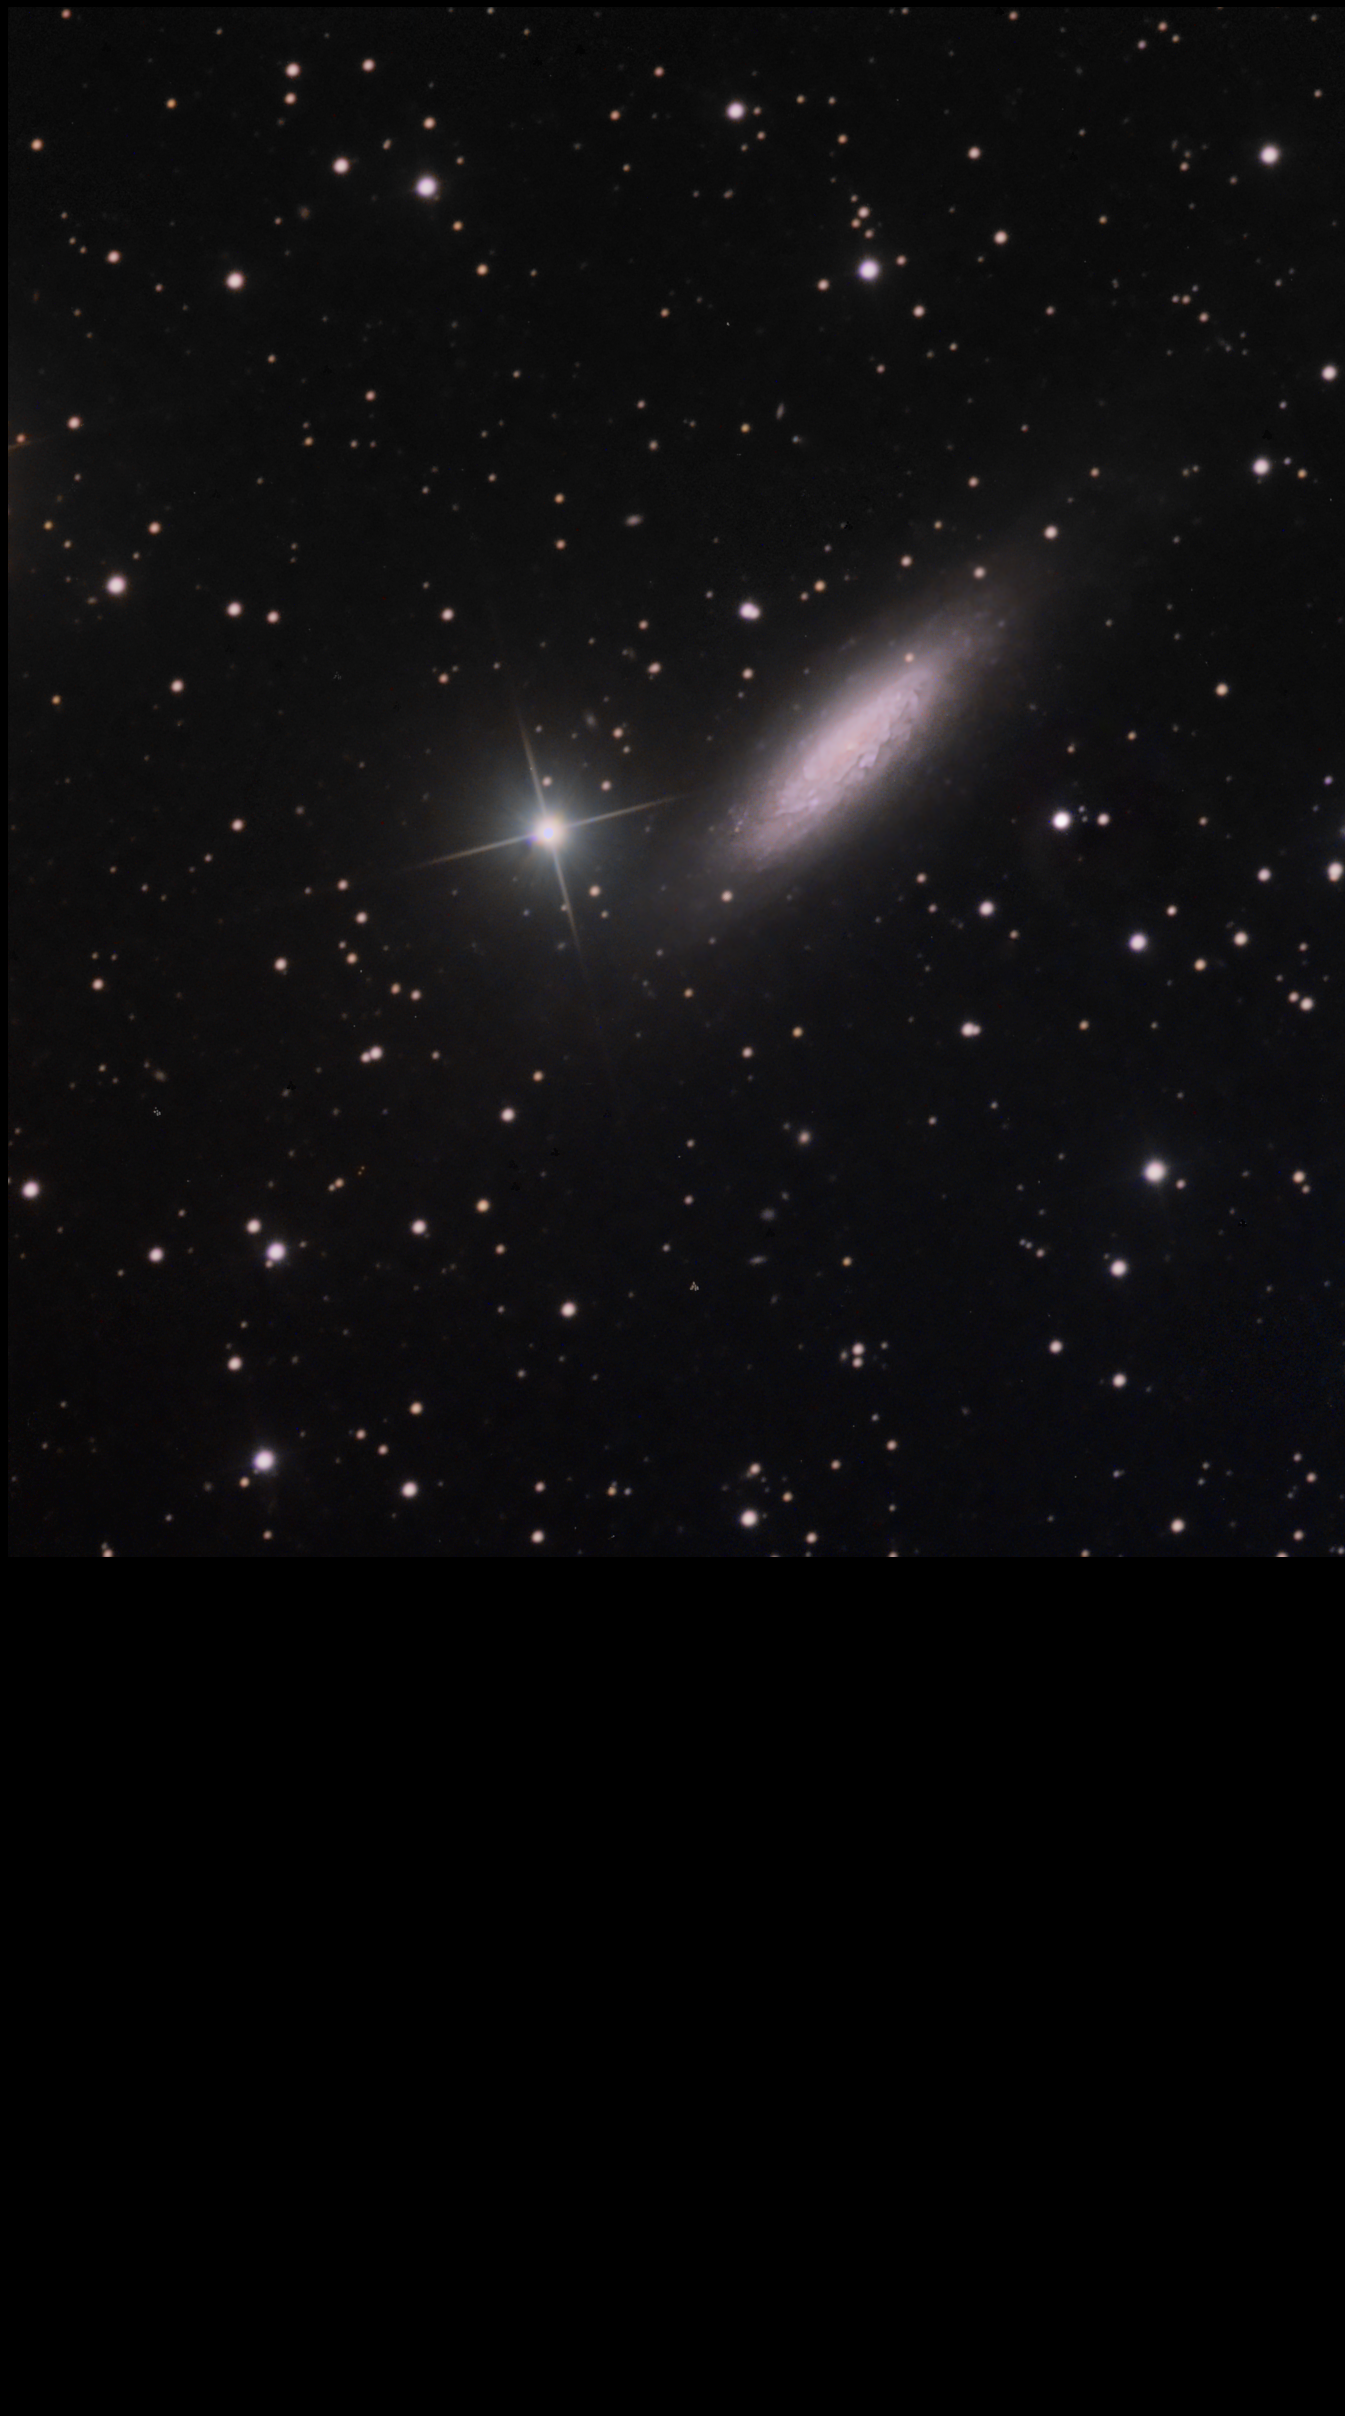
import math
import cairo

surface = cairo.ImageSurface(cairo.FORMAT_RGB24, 1345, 2416)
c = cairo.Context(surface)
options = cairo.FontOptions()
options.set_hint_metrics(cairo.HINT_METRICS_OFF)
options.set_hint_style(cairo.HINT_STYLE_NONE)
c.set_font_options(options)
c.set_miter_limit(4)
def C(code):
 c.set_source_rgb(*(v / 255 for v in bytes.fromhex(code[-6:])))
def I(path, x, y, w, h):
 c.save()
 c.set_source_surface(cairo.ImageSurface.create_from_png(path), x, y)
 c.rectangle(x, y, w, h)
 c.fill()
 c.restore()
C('000000')
c.paint()
I('1.png',8,7,1337,1550)
surface.write_to_png('o.png')
